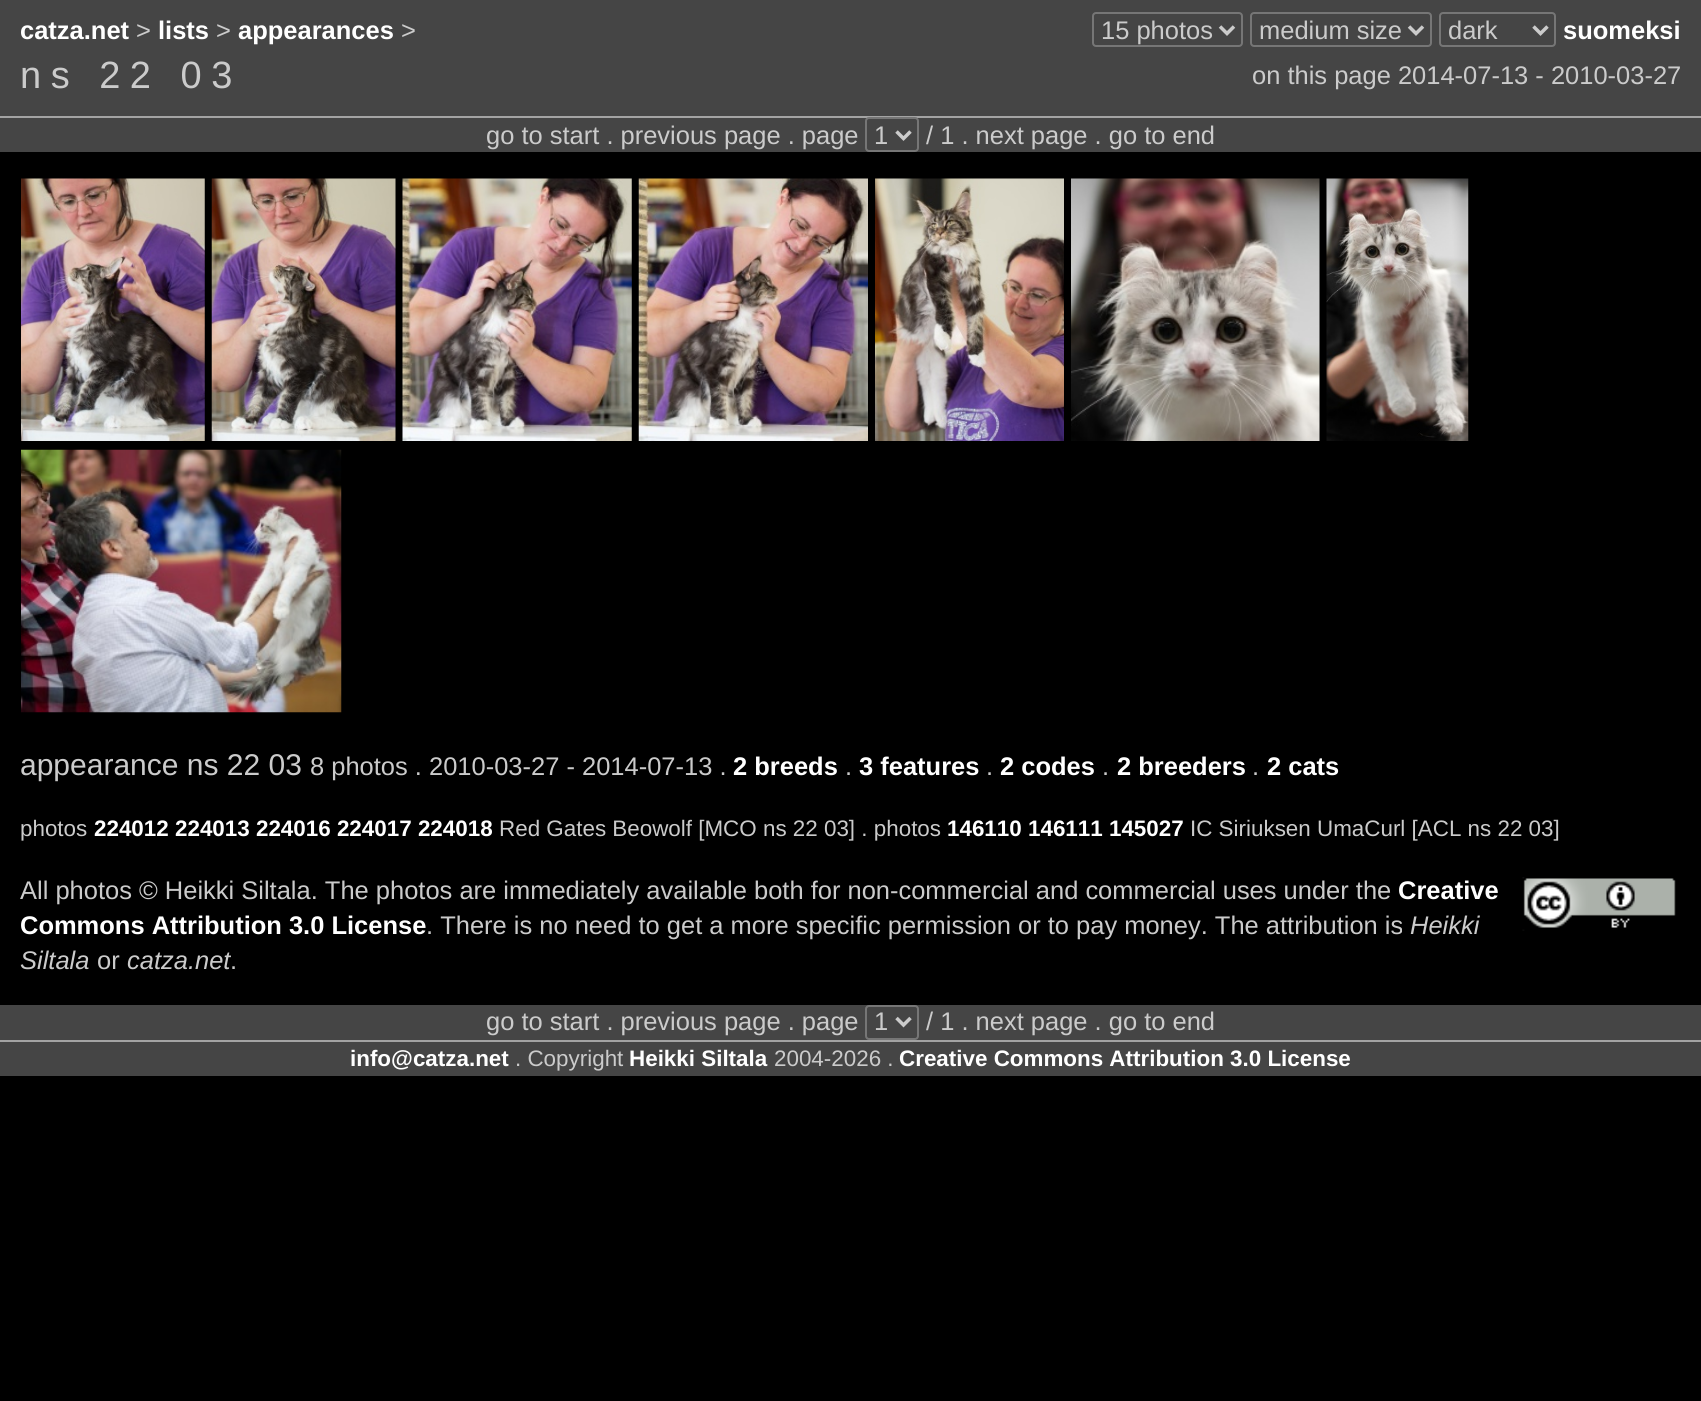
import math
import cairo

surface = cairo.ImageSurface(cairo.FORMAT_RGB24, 1701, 1401)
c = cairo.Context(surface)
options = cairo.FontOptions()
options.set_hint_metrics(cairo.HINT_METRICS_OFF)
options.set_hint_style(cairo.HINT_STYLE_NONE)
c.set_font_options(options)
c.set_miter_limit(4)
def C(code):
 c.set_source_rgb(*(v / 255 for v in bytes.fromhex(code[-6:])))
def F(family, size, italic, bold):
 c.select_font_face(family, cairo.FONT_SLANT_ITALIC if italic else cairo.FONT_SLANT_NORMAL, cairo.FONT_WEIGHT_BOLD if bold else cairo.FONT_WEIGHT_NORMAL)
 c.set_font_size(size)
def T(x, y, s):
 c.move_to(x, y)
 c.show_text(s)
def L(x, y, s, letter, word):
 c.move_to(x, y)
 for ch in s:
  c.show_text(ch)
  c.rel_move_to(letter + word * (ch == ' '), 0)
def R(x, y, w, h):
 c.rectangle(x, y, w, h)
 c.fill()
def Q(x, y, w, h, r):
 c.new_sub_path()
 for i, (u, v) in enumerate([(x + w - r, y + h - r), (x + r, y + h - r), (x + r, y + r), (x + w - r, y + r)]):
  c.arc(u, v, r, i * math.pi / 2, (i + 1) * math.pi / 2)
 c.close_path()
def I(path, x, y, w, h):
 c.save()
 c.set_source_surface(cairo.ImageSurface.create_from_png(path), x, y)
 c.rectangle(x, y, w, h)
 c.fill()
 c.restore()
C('000000')
c.paint()
C('454545')
R(0,0,1701,152)
F('Liberation Sans',25.48,0,1)
C('ffffff')
T(20,39,'catza.net')
F('Liberation Sans',25.48,0,0)
C('cbcbcb')
T(136,39,'>')
F('Liberation Sans',25.48,0,1)
C('ffffff')
T(158,39,'lists')
F('Liberation Sans',25.48,0,0)
C('cbcbcb')
T(216,39,'>')
F('Liberation Sans',25.48,0,1)
C('ffffff')
T(238,39,'appearances')
F('Liberation Sans',25.48,0,0)
C('cbcbcb')
T(401,39,'>')
Q(1093,13,149,33,3)
C('767676')
c.stroke()
c.new_path()
c.move_to(1220,26.5)
c.line_to(1227,33.5)
c.line_to(1234,26.5)
C('cbcbcb')
c.set_line_width(3.5)
c.stroke()
T(1101,39,'15 photos')
Q(1251,13,180,33,3)
C('767676')
c.set_line_width(2)
c.stroke()
c.new_path()
c.move_to(1409,26.5)
c.line_to(1416,33.5)
c.line_to(1423,26.5)
C('cbcbcb')
c.set_line_width(3.5)
c.stroke()
T(1259,39,'medium size')
Q(1440,13,115,33,3)
C('767676')
c.set_line_width(2)
c.stroke()
c.new_path()
c.move_to(1533.5,26.5)
c.line_to(1540.5,33.5)
c.line_to(1547.5,26.5)
C('cbcbcb')
c.set_line_width(3.5)
c.stroke()
T(1448,39,'dark')
F('Liberation Sans',25.48,0,1)
C('ffffff')
T(1563,39,'suomeksi')
F('Liberation Sans',38,0,0)
C('cbcbcb')
L(20,88,'ns 22 03',9.5,0)
F('Liberation Sans',25.48,0,0)
T(1252,84,'on this page 2014-07-13 - 2010-03-27')
C('a3a3a3')
R(0,116,1701,2)
C('cbcbcb')
T(486,144,'go to start . previous page . page')
C('454545')
Q(866,118,52,33,3)
c.fill_preserve()
C('767676')
c.set_line_width(2)
c.stroke()
c.new_path()
c.move_to(896.5,131.5)
c.line_to(903.5,138.5)
c.line_to(910.5,131.5)
C('cbcbcb')
c.set_line_width(3.5)
c.stroke()
T(874,144,'1')
T(926,144,'/ 1 . next page . go to end')
I('1.png',21,178,184,263)
I('2.png',211,178,185,263)
I('3.png',402,178,230,263)
I('4.png',638,178,230,263)
I('5.png',875,178,189,263)
I('6.png',1071,178,249,263)
I('7.png',1326,178,143,263)
I('8.png',21,449,321,264)
F('Liberation Sans',30,0,0)
T(20,775,'appearance ns 22 03')
F('Liberation Sans',25.48,0,0)
T(310,775,'8 photos . 2010-03-27 - 2014-07-13 .')
F('Liberation Sans',25.48,0,1)
C('ffffff')
T(733,775,'2 breeds')
F('Liberation Sans',25.48,0,0)
C('cbcbcb')
T(845,775,'.')
F('Liberation Sans',25.48,0,1)
C('ffffff')
T(859,775,'3 features')
F('Liberation Sans',25.48,0,0)
C('cbcbcb')
T(986,775,'.')
F('Liberation Sans',25.48,0,1)
C('ffffff')
T(1000,775,'2 codes')
F('Liberation Sans',25.48,0,0)
C('cbcbcb')
T(1102,775,'.')
F('Liberation Sans',25.48,0,1)
C('ffffff')
T(1117,775,'2 breeders')
F('Liberation Sans',25.48,0,0)
C('cbcbcb')
T(1252,775,'.')
F('Liberation Sans',25.48,0,1)
C('ffffff')
T(1267,775,'2 cats')
F('Liberation Sans',22.4,0,0)
C('cbcbcb')
T(20,836,'photos')
F('Liberation Sans',22.4,0,1)
C('ffffff')
T(94,836,'224012 224013 224016 224017 224018')
F('Liberation Sans',22.4,0,0)
C('cbcbcb')
T(499,836,'Red Gates Beowolf [MCO ns 22 03] . photos')
F('Liberation Sans',22.4,0,1)
C('ffffff')
T(947,836,'146110 146111 145027')
F('Liberation Sans',22.4,0,0)
C('cbcbcb')
T(1190,836,'IC Siriuksen UmaCurl [ACL ns 22 03]')
F('Liberation Sans',25.48,0,0)
T(20,899,'All photos © Heikki Siltala. The photos are immediately available both for non-commercial and commercial uses under the')
F('Liberation Sans',25.48,0,1)
C('ffffff')
T(1398,899,'Creative')
I('9.png',1522,877,154,54)
T(20,934,'Commons Attribution 3.0 License')
F('Liberation Sans',25.48,0,0)
C('cbcbcb')
T(426,934,'. There is no need to get a more specific permission or to pay money. The attribution is')
F('Liberation Sans',25.48,1,0)
T(1410,934,'Heikki')
T(20,969,'Siltala')
F('Liberation Sans',25.48,0,0)
T(97,969,'or')
F('Liberation Sans',25.48,1,0)
T(127,969,'catza.net')
F('Liberation Sans',25.48,0,0)
T(230,969,'.')
C('454545')
R(0,1005,1701,71)
C('a3a3a3')
R(0,1040,1701,2)
C('cbcbcb')
T(486,1030,'go to start . previous page . page')
Q(866,1006,52,33,3)
C('767676')
c.set_line_width(2)
c.stroke()
c.new_path()
c.move_to(896.5,1018)
c.line_to(903.5,1025)
c.line_to(910.5,1018)
C('cbcbcb')
c.set_line_width(3.5)
c.stroke()
T(874,1030,'1')
T(926,1030,'/ 1 . next page . go to end')
F('Liberation Sans',22.4,0,1)
C('ffffff')
T(350,1066,'info@catza.net')
F('Liberation Sans',22.4,0,0)
C('cbcbcb')
T(515,1066,'. Copyright')
F('Liberation Sans',22.4,0,1)
C('ffffff')
T(629,1066,'Heikki Siltala')
F('Liberation Sans',22.4,0,0)
C('cbcbcb')
T(774,1066,'2004-2026 .')
F('Liberation Sans',22.4,0,1)
C('ffffff')
T(899,1066,'Creative Commons Attribution 3.0 License')
surface.write_to_png('o.png')
